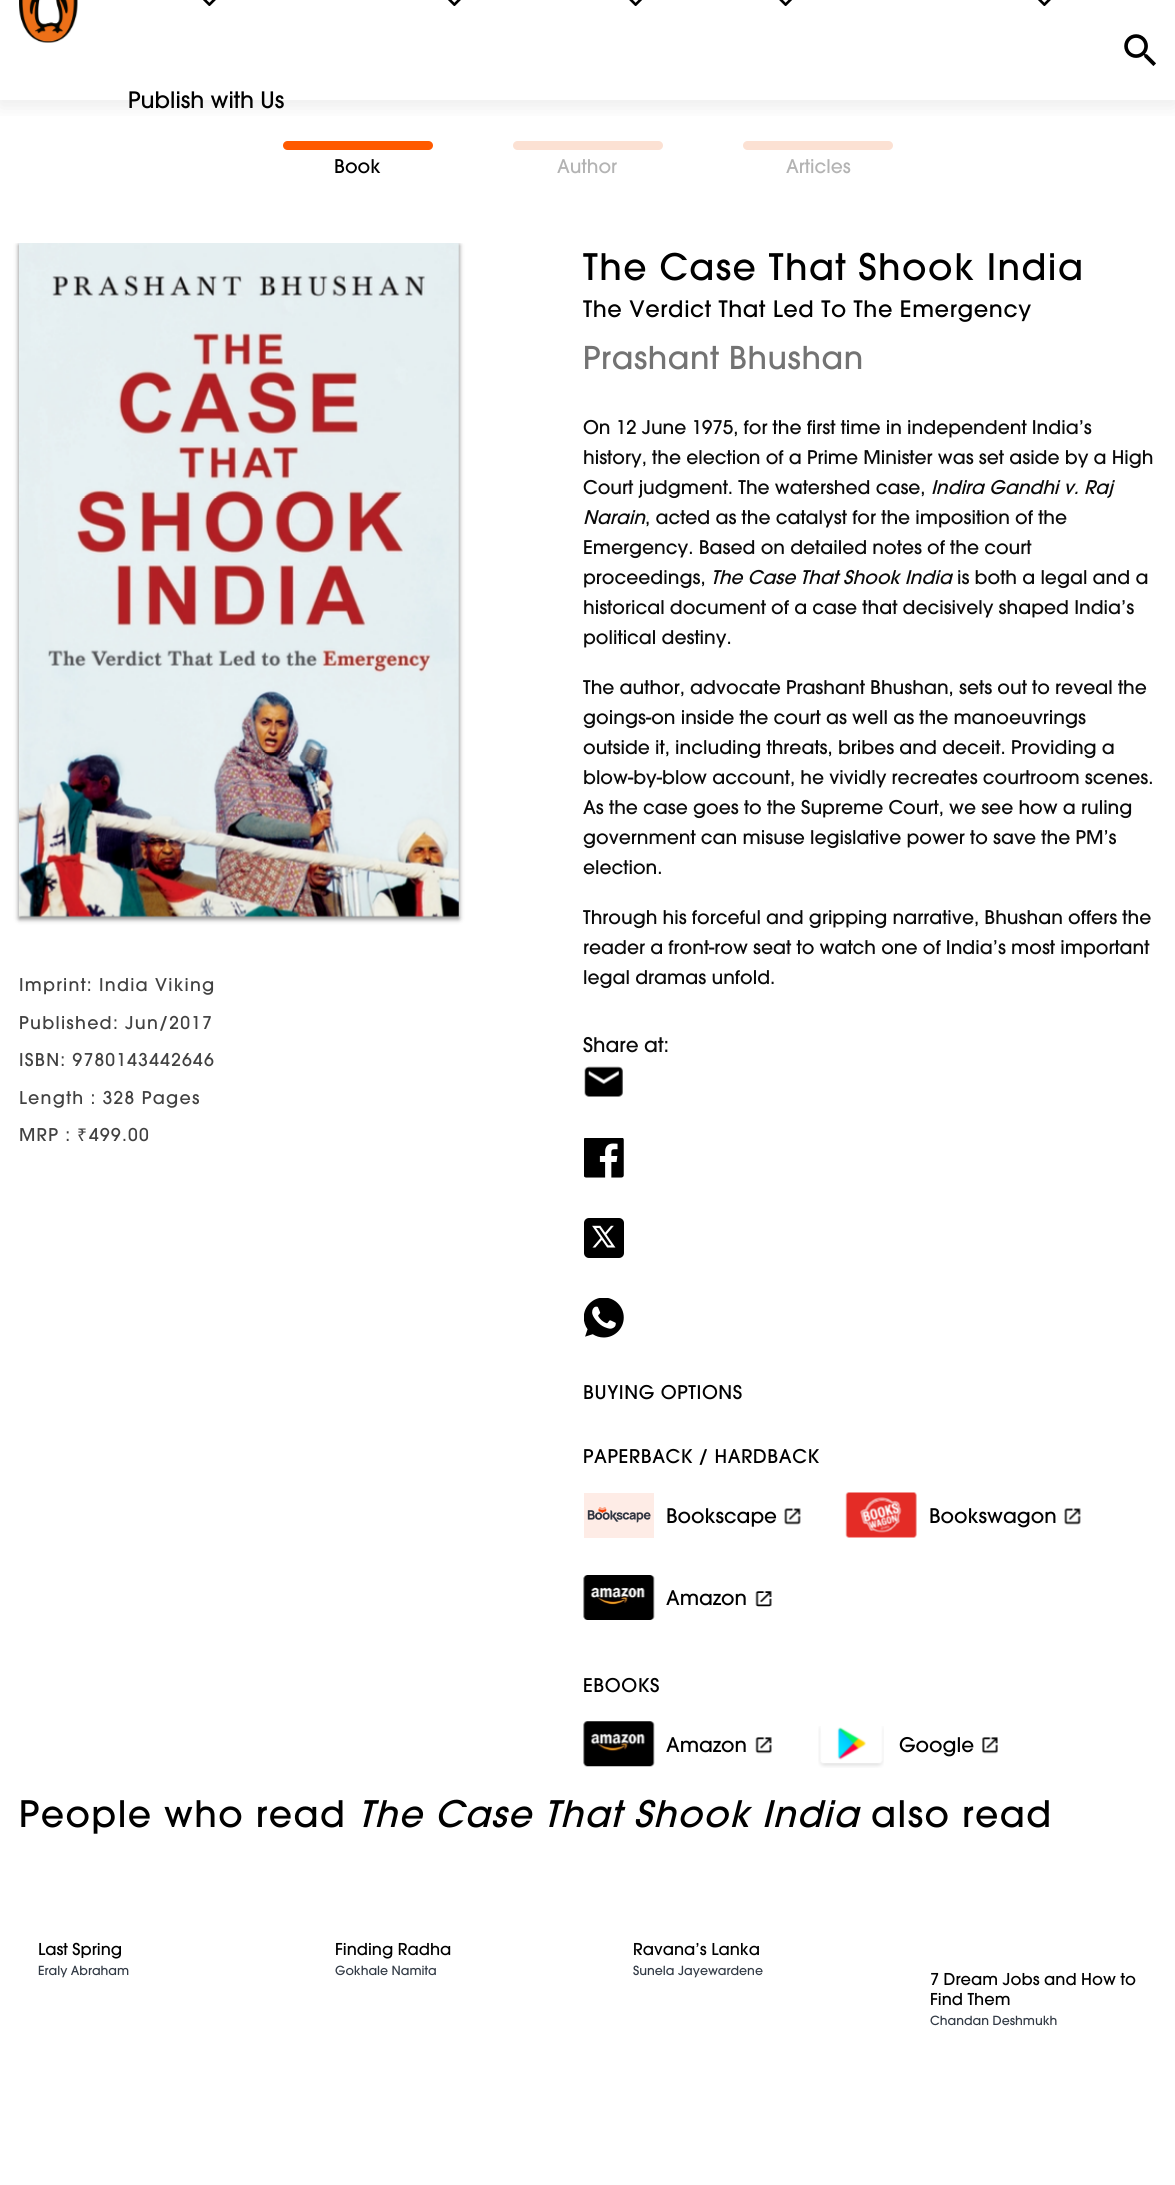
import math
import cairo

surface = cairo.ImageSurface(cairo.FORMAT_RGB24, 1175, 2185)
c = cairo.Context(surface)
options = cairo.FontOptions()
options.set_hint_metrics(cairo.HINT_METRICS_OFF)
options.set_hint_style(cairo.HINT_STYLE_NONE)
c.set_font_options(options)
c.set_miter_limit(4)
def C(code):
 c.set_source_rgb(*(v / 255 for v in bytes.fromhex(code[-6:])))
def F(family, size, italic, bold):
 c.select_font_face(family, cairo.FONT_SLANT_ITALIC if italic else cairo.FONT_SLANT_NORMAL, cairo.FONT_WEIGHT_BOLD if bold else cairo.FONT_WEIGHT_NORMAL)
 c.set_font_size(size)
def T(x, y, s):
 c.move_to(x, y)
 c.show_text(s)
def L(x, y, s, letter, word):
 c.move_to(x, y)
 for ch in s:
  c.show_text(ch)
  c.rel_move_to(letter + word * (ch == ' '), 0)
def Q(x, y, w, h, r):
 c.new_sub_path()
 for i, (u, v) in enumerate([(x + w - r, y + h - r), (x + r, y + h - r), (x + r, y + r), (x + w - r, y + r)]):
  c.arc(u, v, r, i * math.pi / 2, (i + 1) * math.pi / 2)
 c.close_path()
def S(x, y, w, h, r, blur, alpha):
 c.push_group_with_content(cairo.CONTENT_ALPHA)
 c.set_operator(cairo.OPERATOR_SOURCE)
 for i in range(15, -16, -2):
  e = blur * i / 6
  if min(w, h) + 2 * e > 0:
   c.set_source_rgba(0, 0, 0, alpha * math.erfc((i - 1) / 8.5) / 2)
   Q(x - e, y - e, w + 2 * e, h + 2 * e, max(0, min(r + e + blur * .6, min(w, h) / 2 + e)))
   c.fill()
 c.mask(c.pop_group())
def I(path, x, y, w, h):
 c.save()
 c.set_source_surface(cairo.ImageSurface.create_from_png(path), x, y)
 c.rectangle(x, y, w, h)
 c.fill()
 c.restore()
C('ffffff')
c.paint()
c.save()
c.rectangle(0,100,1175,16)
c.clip()
C('777777')
S(0,5,1175,100,0,10,.16)
c.restore()
I('1.png',1124,34,32,32)
I('2.png',19,0,59,43)
I('3.png',203,0,13,6)
I('3.png',448,0,13,6)
I('4.png',629,0,13,6)
I('4.png',779,0,13,6)
I('3.png',1038,0,13,6)
F('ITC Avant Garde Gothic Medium',22.5,0,0)
C('000000')
T(128,108,'Publish with Us')
C('ff5a00')
Q(283,141,150,9,4.5)
c.fill()
F('ITC Avant Garde Gothic Medium',18.75,0,0)
C('000000')
T(334,173,'Book')
C('fce1d3')
Q(513,141,150,9,4.5)
c.fill()
C('b3b3b3')
T(557,173,'Author')
C('fce1d3')
Q(743,141,150,9,4.5)
c.fill()
C('b3b3b3')
T(786,173,'Articles')
c.save()
c.rectangle(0,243,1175,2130)
c.clip()
C('000000')
S(19,245,440,674,0,2.5,.5)
c.restore()
I('5.png',19,243,440,674)
F('ITC Avant Garde Gothic Medium',17.5,0,0)
C('414141')
L(19,991,'Imprint: India Viking',1.25,0)
L(19,1029,'Published: Jun/2017',1.25,0)
L(19,1066,'ISBN: 9780143442646',1.25,0)
L(19,1104,'Length : 328 Pages',1.25,0)
L(19,1141,'MRP :',1.25,0)
F('Noto Sans',17.5,0,0)
L(77,1141,'₹',1.25,0)
F('ITC Avant Garde Gothic Medium',17.5,0,0)
L(89,1141,'499.00',1.25,0)
F('ITC Avant Garde Gothic Medium',36.25,0,0)
C('000000')
L(583,280,'The Case That Shook India',1.45,0)
F('ITC Avant Garde Gothic Medium',22.5,0,0)
L(583,317,'The Verdict That Led To The Emergency',.6,0)
F('ITC Avant Garde Gothic Medium',31.25,0,0)
C('737373')
L(583,369,'Prashant Bhushan',.6,0)
F('ITC Avant Garde Gothic Medium',18.75,0,0)
C('0a0a0a')
T(583,434,'On 12 June 1975, for the first time in independent India’s')
T(583,464,'history, the election of a Prime Minister was set aside by a High')
T(583,494,'Court judgment. The watershed case,')
F('ITC Avant Garde Gothic Medium',18.75,1,0)
T(931,494,'Indira Gandhi v. Raj')
T(583,524,'Narain')
F('ITC Avant Garde Gothic Medium',18.75,0,0)
T(645,524,', acted as the catalyst for the imposition of the')
T(583,554,'Emergency. Based on detailed notes of the court')
T(583,584,'proceedings,')
F('ITC Avant Garde Gothic Medium',18.75,1,0)
T(711,584,'The Case That Shook India')
F('ITC Avant Garde Gothic Medium',18.75,0,0)
T(957,584,'is both a legal and a')
T(583,614,'historical document of a case that decisively shaped India’s')
T(583,644,'political destiny.')
T(583,694,'The author, advocate Prashant Bhushan, sets out to reveal the')
T(583,724,'goings-on inside the court as well as the manoeuvrings')
T(583,754,'outside it, including threats, bribes and deceit. Providing a')
T(583,784,'blow-by-blow account, he vividly recreates courtroom scenes.')
T(583,814,'As the case goes to the Supreme Court, we see how a ruling')
T(583,844,'government can misuse legislative power to save the PM’s')
T(583,874,'election.')
T(583,924,'Through his forceful and gripping narrative, Bhushan offers the')
T(583,954,'reader a front-row seat to watch one of India’s most important')
T(583,984,'legal dramas unfold.')
F('ITC Avant Garde Gothic Medium',20,0,0)
T(583,1052,'Share at:')
I('6.png',584,1066,39,31)
I('7.png',584,1138,40,40)
I('8.png',584,1218,40,40)
I('9.png',584,1298,40,40)
F('ITC Avant Garde Gothic Medium',18.75,0,0)
C('000000')
L(583,1399,'BUYING OPTIONS',.6,0)
L(583,1463,'PAPERBACK / HARDBACK',.6,0)
I('10.png',584,1493,70,45)
F('ITC Avant Garde Gothic Medium',20,0,0)
T(666,1523,'Bookscape')
I('11.png',784,1508,17,17)
I('12.png',845,1492,72,46)
T(929,1523,'Bookswagon')
I('11.png',1064,1508,17,17)
I('13.png',583,1575,72,45)
T(666,1605,'Amazon')
I('14.png',755,1591,17,16)
F('ITC Avant Garde Gothic Medium',18.75,0,0)
L(583,1692,'EBOOKS',.6,0)
I('15.png',583,1721,72,46)
F('ITC Avant Garde Gothic Medium',20,0,0)
T(666,1752,'Amazon')
I('16.png',755,1737,17,17)
I('17.png',818,1726,66,42)
T(899,1752,'Google')
I('18.png',982,1737,16,17)
F('ITC Avant Garde Gothic Medium',36.25,0,0)
L(19,1827,'People who read',1.45,0)
F('ITC Avant Garde Gothic Medium',36.25,1,0)
L(358,1827,'The Case That Shook India',1.45,0)
F('ITC Avant Garde Gothic Medium',36.25,0,0)
L(871,1827,'also read',1.45,0)
F('ITC Avant Garde Gothic Medium',16.25,0,0)
T(38,1955,'Last Spring')
F('ITC Avant Garde Gothic Medium',12.5,0,0)
C('323a45')
T(38,1975,'Eraly Abraham')
F('ITC Avant Garde Gothic Medium',16.25,0,0)
C('000000')
T(335,1955,'Finding Radha')
F('ITC Avant Garde Gothic Medium',12.5,0,0)
C('323a45')
T(335,1975,'Gokhale Namita')
F('ITC Avant Garde Gothic Medium',16.25,0,0)
C('000000')
T(633,1955,'Ravana’s Lanka')
F('ITC Avant Garde Gothic Medium',12.5,0,0)
C('323a45')
T(633,1975,'Sunela Jayewardene')
F('ITC Avant Garde Gothic Medium',16.25,0,0)
C('000000')
T(930,1985,'7 Dream Jobs and How to')
T(930,2005,'Find Them')
F('ITC Avant Garde Gothic Medium',12.5,0,0)
C('323a45')
T(930,2025,'Chandan Deshmukh')
surface.write_to_png('o.png')
